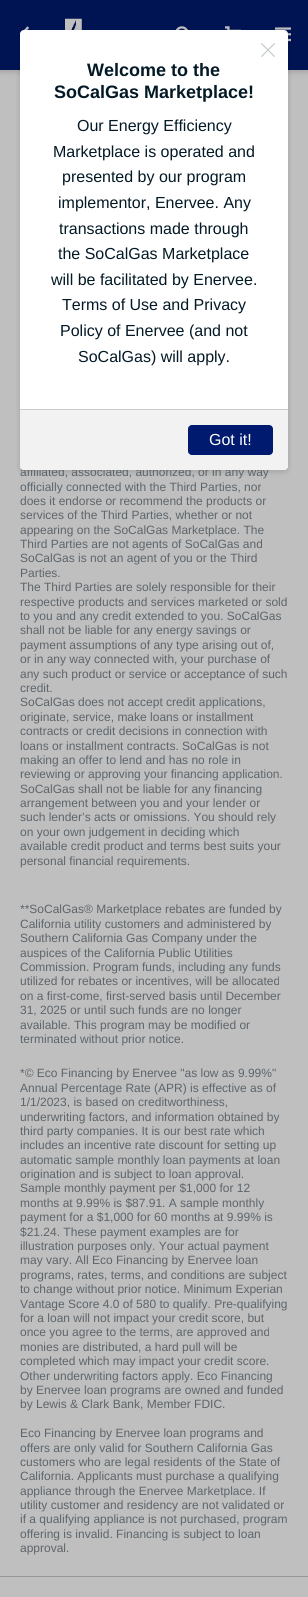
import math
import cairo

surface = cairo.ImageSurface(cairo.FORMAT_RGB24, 308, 1597)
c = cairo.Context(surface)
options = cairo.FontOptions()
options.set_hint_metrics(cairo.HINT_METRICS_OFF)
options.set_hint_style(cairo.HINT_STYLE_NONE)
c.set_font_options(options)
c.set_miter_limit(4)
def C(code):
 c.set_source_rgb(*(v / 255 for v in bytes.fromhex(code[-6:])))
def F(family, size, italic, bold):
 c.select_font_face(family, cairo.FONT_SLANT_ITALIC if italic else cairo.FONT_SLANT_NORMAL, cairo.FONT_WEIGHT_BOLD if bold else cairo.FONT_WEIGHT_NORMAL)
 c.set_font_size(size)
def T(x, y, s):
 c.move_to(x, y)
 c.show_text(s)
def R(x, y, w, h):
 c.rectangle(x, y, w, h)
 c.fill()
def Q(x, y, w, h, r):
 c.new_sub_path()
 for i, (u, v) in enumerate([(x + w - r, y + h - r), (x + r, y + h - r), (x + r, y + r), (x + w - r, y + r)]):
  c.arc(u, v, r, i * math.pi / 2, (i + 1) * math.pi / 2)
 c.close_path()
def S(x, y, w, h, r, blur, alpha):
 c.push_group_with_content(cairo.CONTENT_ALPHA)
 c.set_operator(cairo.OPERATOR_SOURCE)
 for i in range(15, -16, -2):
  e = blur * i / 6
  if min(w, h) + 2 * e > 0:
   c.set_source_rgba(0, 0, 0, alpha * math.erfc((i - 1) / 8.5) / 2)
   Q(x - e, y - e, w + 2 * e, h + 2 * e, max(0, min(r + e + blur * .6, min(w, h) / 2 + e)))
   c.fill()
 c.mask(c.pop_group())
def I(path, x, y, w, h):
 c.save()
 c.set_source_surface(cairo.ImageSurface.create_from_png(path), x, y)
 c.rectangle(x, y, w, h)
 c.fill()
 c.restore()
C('bfbfbf')
c.paint()
C('000000')
S(0,2,308,70,0,3,.15)
C('001454')
R(0,0,308,70)
I('1.png',20,26,9,8)
I('2.png',65,18,17,12)
I('3.png',175,26,13,4)
I('4.png',225,26,16,4)
I('5.png',275,27,16,15)
C('000000')
S(20,32,268,440,4,3,.15)
F('Liberation Sans',12,0,0)
C('5d656b')
T(20,476,'affiliated, associated, authorized, or in any way')
C('ffffff')
Q(20,30,268,440,4)
c.fill()
I('6.png',261,43,14,14)
F('Liberation Sans',18,0,1)
C('031926')
T(87,76,'Welcome to the')
T(54,98,'SoCalGas Marketplace!')
F('Liberation Sans',16,0,0)
T(77,131,'Our Energy Efficiency')
T(53,157,'Marketplace is operated and')
T(62,182,'presented by our program')
T(58,208,'implementor, Enervee. Any')
T(59,234,'transactions made through')
T(58,259,'the SoCalGas Marketplace')
T(51,285,'will be facilitated by Enervee.')
T(62,310,'Terms of Use and Privacy')
T(60,336,'Policy of Enervee (and not')
T(78,362,'SoCalGas) will apply.')
C('f2f2f2')
c.new_path()
c.move_to(20,409)
c.line_to(288,409)
c.line_to(288,466)
c.curve_to(288,468,286,470,284,470)
c.line_to(24,470)
c.curve_to(22,470,20,468,20,466)
c.close_path()
c.fill()
C('cbcbcb')
R(20,409,268,1)
C('001a70')
Q(188.5,425.5,84,29,3.5)
c.fill_preserve()
c.set_line_width(1)
c.stroke()
C('ffffff')
T(209,445,'Got it!')
F('Liberation Sans',12,0,0)
C('5d656b')
T(20,491,'officially connected with the Third Parties, nor')
T(20,505,'does it endorse or recommend the products or')
T(20,519,'services of the Third Parties, whether or not')
T(20,534,'appearing on the SoCalGas Marketplace. The')
T(20,548,'Third Parties are not agents of SoCalGas and')
T(20,562,'SoCalGas is not an agent of you or the Third')
T(20,577,'Parties.')
T(20,591,'The Third Parties are solely responsible for their')
T(20,606,'respective products and services marketed or sold')
T(20,620,'to you and any credit extended to you. SoCalGas')
T(20,634,'shall not be liable for any energy savings or')
T(20,649,'payment assumptions of any type arising out of,')
T(20,663,'or in any way connected with, your purchase of')
T(20,678,'any such product or service or acceptance of such')
T(20,692,'credit.')
T(20,706,'SoCalGas does not accept credit applications,')
T(20,721,'originate, service, make loans or installment')
T(20,735,'contracts or credit decisions in connection with')
T(20,750,'loans or installment contracts. SoCalGas is not')
T(20,764,'making an offer to lend and has no role in')
T(20,778,'reviewing or approving your financing application.')
T(20,793,'SoCalGas shall not be liable for any financing')
T(20,807,'arrangement between you and your lender or')
T(20,821,'such lender’s acts or omissions. You should rely')
T(20,836,'on your own judgement in deciding which')
T(20,850,'available credit product and terms best suits your')
T(20,865,'personal financial requirements.')
T(20,913,'**SoCalGas® Marketplace rebates are funded by')
T(20,928,'California utility customers and administered by')
T(20,942,'Southern California Gas Company under the')
T(20,957,'auspices of the California Public Utilities')
T(20,971,'Commission. Program funds, including any funds')
T(20,985,'utilized for rebates or incentives, will be allocated')
T(20,1000,'on a first-come, first-served basis until December')
T(20,1014,'31, 2025 or until such funds are no longer')
T(20,1029,'available. This program may be modified or')
T(20,1043,'terminated without prior notice.')
T(20,1077,'*© Eco Financing by Enervee "as low as 9.99%"')
T(20,1092,'Annual Percentage Rate (APR) is effective as of')
T(20,1106,'1/1/2023, is based on creditworthiness,')
T(20,1121,'underwriting factors, and information obtained by')
T(20,1135,'third party companies. It is our best rate which')
T(20,1149,'includes an incentive rate discount for setting up')
T(20,1164,'automatic sample monthly loan payments at loan')
T(20,1178,'origination and is subject to loan approval.')
T(20,1192,'Sample monthly payment per $1,000 for 12')
T(20,1207,'months at 9.99% is $87.91. A sample monthly')
T(20,1221,'payment for a $1,000 for 60 months at 9.99% is')
T(20,1236,'$21.24. These payment examples are for')
T(20,1250,'illustration purposes only. Your actual payment')
T(20,1264,'may vary. All Eco Financing by Enervee loan')
T(20,1279,'programs, rates, terms, and conditions are subject')
T(20,1293,'to change without prior notice. Minimum Experian')
T(20,1308,'Vantage Score 4.0 of 580 to qualify. Pre-qualifying')
T(20,1322,'for a loan will not impact your credit score, but')
T(20,1336,'once you agree to the terms, are approved and')
T(20,1351,'monies are distributed, a hard pull will be')
T(20,1365,'completed which may impact your credit score.')
T(20,1380,'Other underwriting factors apply. Eco Financing')
T(20,1394,'by Enervee loan programs are owned and funded')
T(20,1408,'by Lewis & Clark Bank, Member FDIC.')
T(20,1437,'Eco Financing by Enervee loan programs and')
T(20,1452,'offers are only valid for Southern California Gas')
T(20,1466,'customers who are legal residents of the State of')
T(20,1480,'California. Applicants must purchase a qualifying')
T(20,1495,'appliance through the Enervee Marketplace. If')
T(20,1509,'utility customer and residency are not validated or')
T(20,1523,'if a qualifying appliance is not purchased, program')
T(20,1538,'offering is invalid. Financing is subject to loan')
T(20,1552,'approval.')
C('989898')
R(0,1576,308,1)
surface.write_to_png('o.png')
